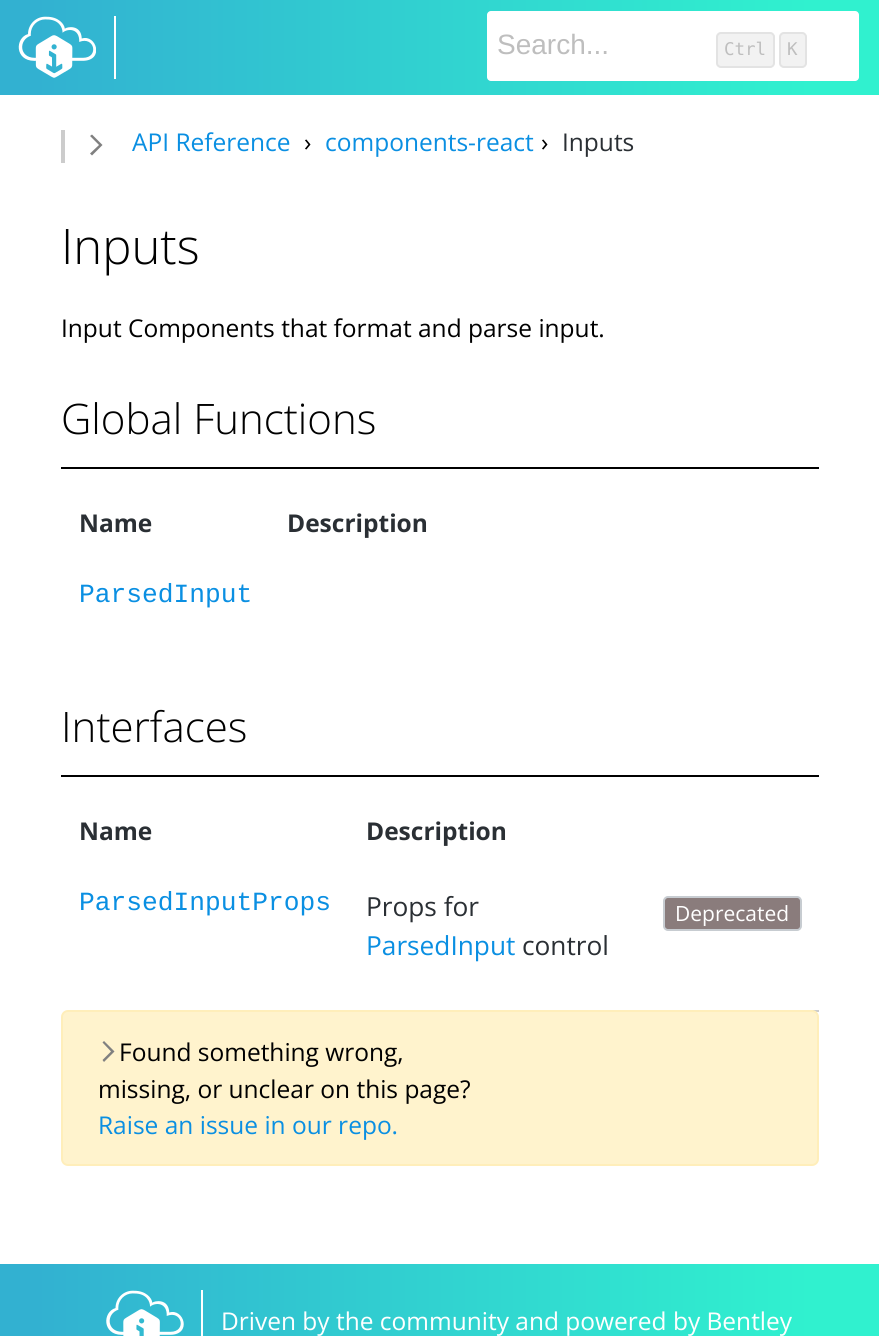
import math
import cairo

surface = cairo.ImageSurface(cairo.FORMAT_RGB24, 879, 1336)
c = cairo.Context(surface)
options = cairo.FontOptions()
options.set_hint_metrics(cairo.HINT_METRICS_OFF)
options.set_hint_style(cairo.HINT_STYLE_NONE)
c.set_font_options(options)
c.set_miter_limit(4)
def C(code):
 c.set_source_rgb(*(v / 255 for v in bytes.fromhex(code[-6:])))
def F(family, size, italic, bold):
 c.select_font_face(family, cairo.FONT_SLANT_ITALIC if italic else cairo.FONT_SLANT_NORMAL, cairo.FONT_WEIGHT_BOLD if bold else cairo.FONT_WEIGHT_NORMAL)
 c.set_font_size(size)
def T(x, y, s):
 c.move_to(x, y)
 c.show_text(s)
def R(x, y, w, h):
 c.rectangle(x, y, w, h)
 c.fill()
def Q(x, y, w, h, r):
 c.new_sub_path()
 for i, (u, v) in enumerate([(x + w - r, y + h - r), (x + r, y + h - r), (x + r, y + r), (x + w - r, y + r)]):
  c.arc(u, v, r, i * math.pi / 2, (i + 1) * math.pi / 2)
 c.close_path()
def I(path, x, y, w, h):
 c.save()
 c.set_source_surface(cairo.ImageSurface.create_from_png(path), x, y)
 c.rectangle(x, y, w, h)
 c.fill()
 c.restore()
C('ffffff')
c.paint()
gradient = cairo.LinearGradient(0,47,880,47)
gradient.add_color_stop_rgba(.04,0.196,0.694,0.82,1)
gradient.add_color_stop_rgba(.92,0.188,0.945,0.812,1)
c.set_source(gradient)
R(0,0,879,95)
I('1.png',18,16,78,62)
C('ffffff')
R(114,16,2,63)
Q(487,11,372,70,4)
c.fill()
F('Liberation Sans',28,0,0)
C('bebebe')
T(497,54,'Search...')
C('f2f2f2')
Q(716,32,59,36,5)
c.fill()
Q(717,33,57,34,4)
c.set_source_rgba(0.745,0.745,0.745,0.3)
c.stroke()
F('DejaVu Sans Mono',17.5,0,0)
C('bebebe')
T(724,55,'Ctrl')
C('f2f2f2')
Q(779,32,28,36,5)
c.fill()
Q(780,33,26,34,4)
c.set_source_rgba(0.745,0.745,0.745,0.3)
c.stroke()
C('bebebe')
T(787,55,'K')
C('cccccc')
R(61,130,4,33)
C('808080')
c.new_path()
c.move_to(92,134.5)
c.line_to(90,136)
c.line_to(99,145)
c.line_to(90,153.5)
c.line_to(92,155.5)
c.line_to(102.5,145)
c.close_path()
c.fill()
F('Open Sans',24.5,0,0)
C('0a8fe2')
T(132,151,'API Reference')
C('000000')
T(304,151,'›')
C('0a8fe2')
T(325,151,'components-react')
C('000000')
T(541,151,'›')
C('2a2f34')
T(562,151,'Inputs')
F('Open Sans Light',49,0,0)
C('000000')
T(61,264,'Inputs')
F('Open Sans',24.5,0,0)
T(61,337,'Input Components that format and parse input.')
F('Open Sans Light',42,0,0)
T(61,434,'Global Functions')
R(61,467,758,2)
F('Open Sans',24.5,0,1)
C('2a2f34')
T(79,532,'Name')
T(287,532,'Description')
F('Liberation Mono',26.25,0,0)
C('0a8fe2')
T(79,602,'ParsedInput')
F('Open Sans Light',42,0,0)
C('000000')
T(61,742,'Interfaces')
R(61,775,758,2)
F('Open Sans',24.5,0,1)
C('2a2f34')
T(79,840,'Name')
T(366,840,'Description')
F('Liberation Mono',26.25,0,0)
C('0a8fe2')
T(79,910,'ParsedInputProps')
F('Open Sans',26.25,0,0)
C('2a2f34')
T(366,916,'Props for')
C('0a8fe2')
T(366,955,'ParsedInput')
C('2a2f34')
T(522,955,'control')
C('8a7c7c')
Q(664,897,137,33,4)
c.fill_preserve()
C('c7ccd1')
c.stroke()
F('Open Sans',21,0,0)
C('ffffff')
T(675,921,'Deprecated')
C('cccccc')
R(812,1010,7,2)
C('fff3cd')
Q(62,1011,756,154,6)
c.fill_preserve()
C('ffeeba')
c.stroke()
C('808080')
c.new_path()
c.move_to(104,1041)
c.line_to(102.5,1042.5)
c.line_to(111,1051.5)
c.line_to(102.5,1060)
c.line_to(104,1062)
c.line_to(114.5,1051.5)
c.close_path()
c.fill()
F('Open Sans',24.5,0,0)
C('000000')
T(119,1061,'Found something wrong,')
T(98,1098,'missing, or unclear on this page?')
C('0a8fe2')
T(98,1134,'Raise an issue in our repo.')
gradient = cairo.LinearGradient(0,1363,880,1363)
gradient.add_color_stop_rgba(.04,0.196,0.694,0.82,1)
gradient.add_color_stop_rgba(.92,0.188,0.945,0.812,1)
c.set_source(gradient)
R(0,1264,879,72)
I('2.png',106,1290,78,46)
C('ffffff')
R(201,1290,2,46)
T(221,1330,'Driven by the community and powered by Bentley')
surface.write_to_png('o.png')
